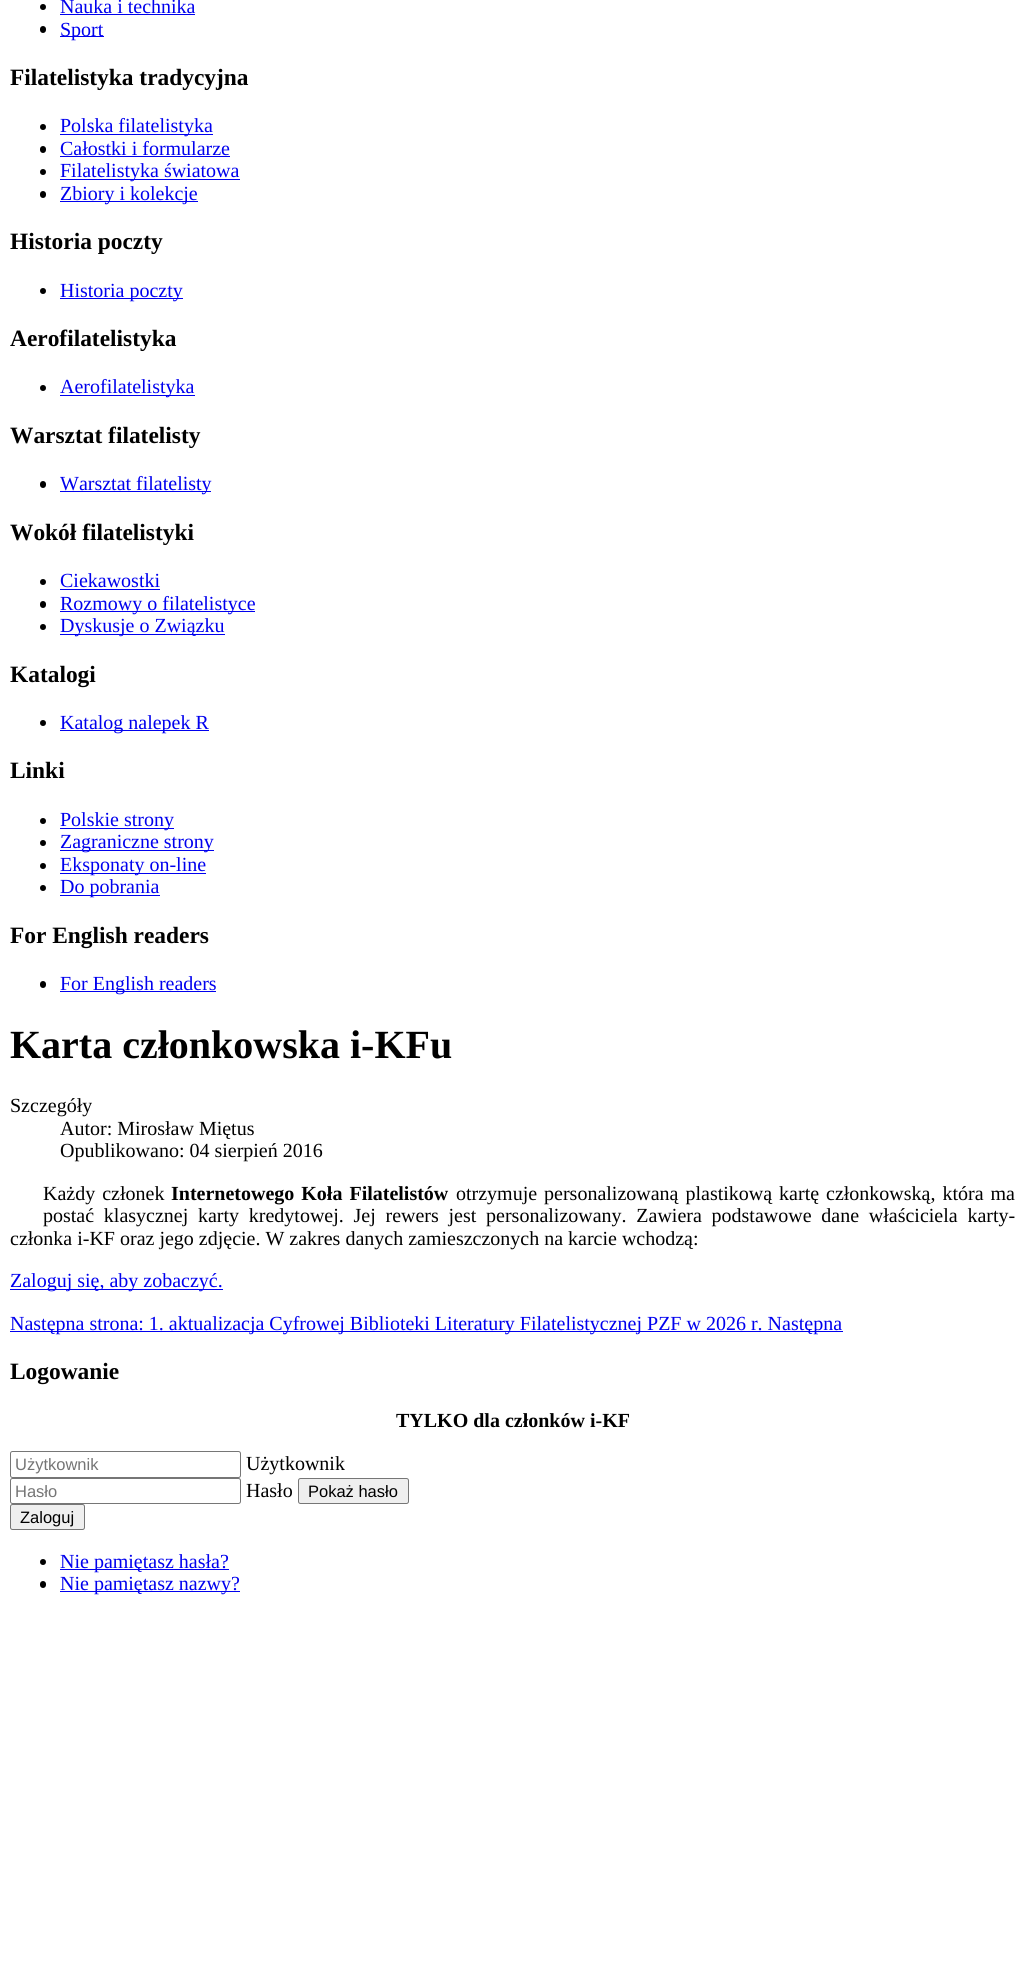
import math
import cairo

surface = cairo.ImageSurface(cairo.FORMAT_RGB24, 1024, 1978)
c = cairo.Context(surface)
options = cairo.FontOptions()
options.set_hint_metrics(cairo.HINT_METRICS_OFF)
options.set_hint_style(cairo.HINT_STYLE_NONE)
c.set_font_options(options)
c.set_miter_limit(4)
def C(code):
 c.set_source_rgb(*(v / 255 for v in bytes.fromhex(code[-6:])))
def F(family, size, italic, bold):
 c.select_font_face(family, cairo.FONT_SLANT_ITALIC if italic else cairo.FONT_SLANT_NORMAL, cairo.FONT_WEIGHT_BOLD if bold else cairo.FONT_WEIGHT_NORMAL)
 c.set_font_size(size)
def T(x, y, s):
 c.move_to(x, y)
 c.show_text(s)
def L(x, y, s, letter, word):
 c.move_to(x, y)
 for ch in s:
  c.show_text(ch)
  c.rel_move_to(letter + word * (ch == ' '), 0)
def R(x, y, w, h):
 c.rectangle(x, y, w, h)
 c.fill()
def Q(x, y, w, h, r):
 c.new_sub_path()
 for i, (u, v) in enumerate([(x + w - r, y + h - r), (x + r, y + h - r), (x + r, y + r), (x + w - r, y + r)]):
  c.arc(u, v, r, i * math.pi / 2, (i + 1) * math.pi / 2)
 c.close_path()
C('ffffff')
c.paint()
C('000000')
c.arc(43,7,3,0,2 * math.pi)
c.fill()
F('Liberation Serif',20,0,0)
C('0000ee')
T(60,13,'Nauka i technika')
R(60,14,135,1)
C('000000')
Q(40,26,6,7,3)
c.fill()
C('0000ee')
R(60,36,44,1)
T(60,36,'Sport')
F('Liberation Serif',23.4,0,1)
C('000000')
T(10,85,'Filatelistyka tradycyjna')
c.new_path()
c.arc(43,127,3,0,2 * math.pi)
c.fill()
C('0000ee')
R(60,134,153,1)
F('Liberation Serif',20,0,0)
T(60,132,'Polska filatelistyka')
C('000000')
Q(40,146,6,7,3)
c.fill()
C('0000ee')
T(60,155,'Całostki i formularze')
R(60,156,170,1)
C('000000')
c.new_path()
c.arc(43,172,3,0,2 * math.pi)
c.fill()
C('0000ee')
R(60,179,180,1)
T(60,177,'Filatelistyka światowa')
C('000000')
Q(40,191,6,7,3)
c.fill()
C('0000ee')
R(60,201,138,1)
T(60,200,'Zbiory i kolekcje')
F('Liberation Serif',23.4,0,1)
C('000000')
T(10,249,'Historia poczty')
c.new_path()
c.arc(43,291,3,0,2 * math.pi)
c.fill()
C('0000ee')
R(60,298,123,1)
F('Liberation Serif',20,0,0)
T(60,297,'Historia poczty')
F('Liberation Serif',23.4,0,1)
C('000000')
T(10,346,'Aerofilatelistyka')
c.new_path()
c.arc(43,388,3,0,2 * math.pi)
c.fill()
C('0000ee')
R(60,395,135,1)
F('Liberation Serif',20,0,0)
T(60,393,'Aerofilatelistyka')
F('Liberation Serif',23.4,0,1)
C('000000')
T(10,443,'Warsztat filatelisty')
Q(40,481,6,7,3)
c.fill()
C('0000ee')
R(60,491,151,1)
F('Liberation Serif',20,0,0)
T(60,490,'Warsztat filatelisty')
F('Liberation Serif',23.4,0,1)
C('000000')
T(10,540,'Wokół filatelistyki')
c.new_path()
c.arc(43,582,3,0,2 * math.pi)
c.fill()
F('Liberation Serif',20,0,0)
C('0000ee')
T(60,587,'Ciekawostki')
R(60,589,100,1)
C('000000')
Q(40,601,6,7,3)
c.fill()
C('0000ee')
R(60,611,195,1)
T(60,610,'Rozmowy o filatelistyce')
C('000000')
c.new_path()
c.arc(43,627,3,0,2 * math.pi)
c.fill()
C('0000ee')
R(60,634,165,1)
T(60,632,'Dyskusje o Związku')
F('Liberation Serif',23.4,0,1)
C('000000')
T(10,682,'Katalogi')
c.new_path()
c.arc(43,723,3,0,2 * math.pi)
c.fill()
C('0000ee')
R(60,730,149,1)
F('Liberation Serif',20,0,0)
T(60,729,'Katalog nalepek R')
F('Liberation Serif',23.4,0,1)
C('000000')
T(10,778,'Linki')
c.new_path()
c.arc(43,821,3,0,2 * math.pi)
c.fill()
C('0000ee')
R(60,828,114,1)
F('Liberation Serif',20,0,0)
T(60,826,'Polskie strony')
C('000000')
c.new_path()
c.arc(43,843,3,0,2 * math.pi)
c.fill()
C('0000ee')
R(60,850,154,1)
T(60,848,'Zagraniczne strony')
C('000000')
c.new_path()
c.arc(43,866,3,0,2 * math.pi)
c.fill()
C('0000ee')
R(60,873,146,1)
T(60,871,'Eksponaty on-line')
C('000000')
c.new_path()
c.arc(43,888,3,0,2 * math.pi)
c.fill()
C('0000ee')
R(60,895,100,1)
T(60,893,'Do pobrania')
F('Liberation Serif',23.4,0,1)
C('000000')
T(10,943,'For English readers')
Q(40,981,6,7,3)
c.fill()
C('0000ee')
R(60,991,156,1)
F('Liberation Serif',20,0,0)
T(60,990,'For English readers')
F('Liberation Serif',40,0,1)
C('000000')
T(10,1058,'Karta członkowska i-KFu')
F('Liberation Serif',20,0,0)
T(10,1112,'Szczegóły')
T(60,1135,'Autor: Mirosław Miętus')
T(60,1157,'Opublikowano: 04 sierpień 2016')
L(43,1200,'Każdy członek',0,2)
F('Liberation Serif',20,0,1)
L(171,1200,'Internetowego Koła Filatelistów',0,2)
F('Liberation Serif',20,0,0)
L(456,1200,'otrzymuje personalizowaną plastikową kartę członkowską, która ma',0,2)
L(43,1222,'postać klasycznej karty kredytowej. Jej rewers jest personalizowany. Zawiera podstawowe dane właściciela karty-',0,4.75)
T(10,1245,'członka i-KF oraz jego zdjęcie. W zakres danych zamieszczonych na karcie wchodzą:')
C('0000ee')
R(10,1289,213,1)
T(10,1287,'Zaloguj się, aby zobaczyć.')
R(10,1331,833,1)
T(10,1330,'Następna strona: 1. aktualizacja Cyfrowej Biblioteki Literatury Filatelistycznej PZF w 2026 r. Następna')
F('Liberation Serif',23.4,0,1)
C('000000')
T(10,1379,'Logowanie')
F('Liberation Serif',20,0,1)
T(396,1427,'TYLKO dla członków i-KF')
Q(10.5,1451.5,230,26,2)
C('767676')
c.set_line_width(1)
c.stroke()
F('Liberation Sans',16.5,0,0)
C('757575')
T(15,1470,'Użytkownik')
F('Liberation Serif',20,0,0)
C('000000')
T(246,1470,'Użytkownik')
Q(10.5,1478.5,230,25,2)
C('767676')
c.stroke()
F('Liberation Sans',16.5,0,0)
C('757575')
T(15,1497,'Hasło')
F('Liberation Serif',20,0,0)
C('000000')
T(246,1497,'Hasło')
C('efefef')
Q(298.5,1478.5,110,25,2)
c.fill_preserve()
C('767676')
c.stroke()
F('Liberation Sans',16.5,0,0)
C('000000')
T(308,1497,'Pokaż hasło')
C('efefef')
Q(10.5,1504.5,74,25,2)
c.fill_preserve()
C('767676')
c.stroke()
C('000000')
T(20,1523,'Zaloguj')
c.new_path()
c.arc(43,1562,3,0,2 * math.pi)
c.fill()
C('0000ee')
R(60,1569,169,1)
F('Liberation Serif',20,0,0)
T(60,1568,'Nie pamiętasz hasła?')
C('000000')
Q(40,1581,6,7,3)
c.fill()
C('0000ee')
R(60,1591,180,1)
T(60,1590,'Nie pamiętasz nazwy?')
surface.write_to_png('o.png')
